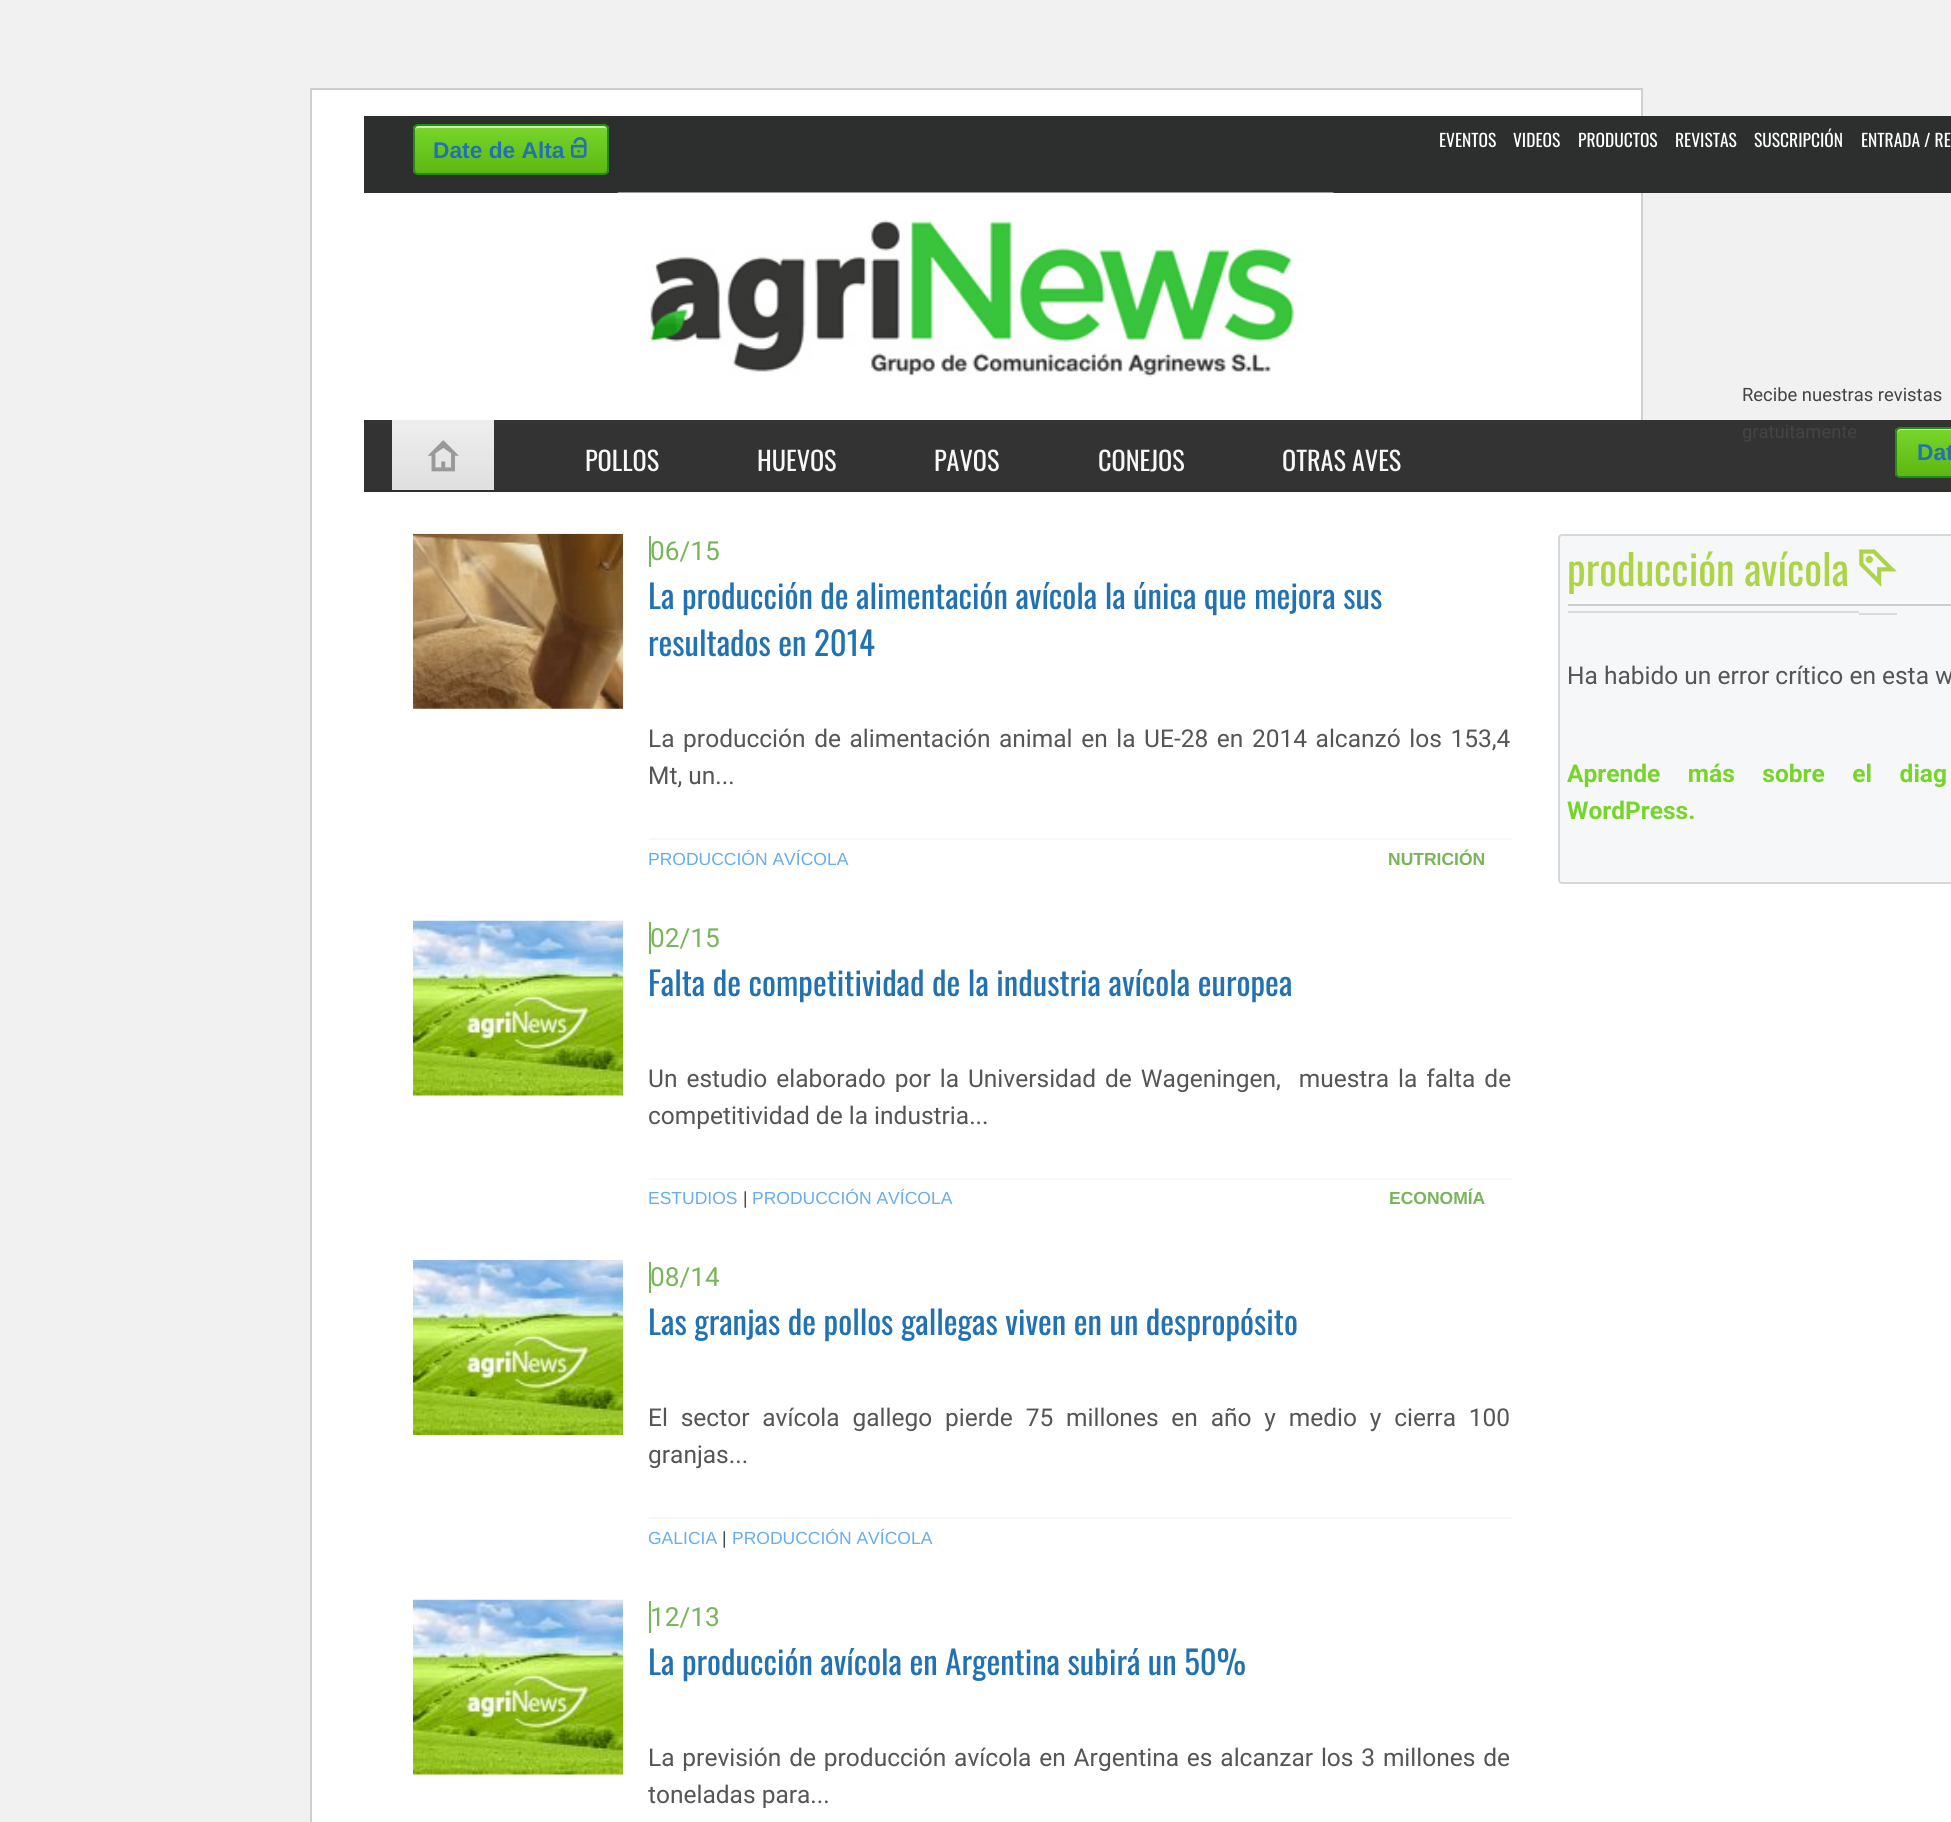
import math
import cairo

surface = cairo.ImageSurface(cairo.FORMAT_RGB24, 1951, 1822)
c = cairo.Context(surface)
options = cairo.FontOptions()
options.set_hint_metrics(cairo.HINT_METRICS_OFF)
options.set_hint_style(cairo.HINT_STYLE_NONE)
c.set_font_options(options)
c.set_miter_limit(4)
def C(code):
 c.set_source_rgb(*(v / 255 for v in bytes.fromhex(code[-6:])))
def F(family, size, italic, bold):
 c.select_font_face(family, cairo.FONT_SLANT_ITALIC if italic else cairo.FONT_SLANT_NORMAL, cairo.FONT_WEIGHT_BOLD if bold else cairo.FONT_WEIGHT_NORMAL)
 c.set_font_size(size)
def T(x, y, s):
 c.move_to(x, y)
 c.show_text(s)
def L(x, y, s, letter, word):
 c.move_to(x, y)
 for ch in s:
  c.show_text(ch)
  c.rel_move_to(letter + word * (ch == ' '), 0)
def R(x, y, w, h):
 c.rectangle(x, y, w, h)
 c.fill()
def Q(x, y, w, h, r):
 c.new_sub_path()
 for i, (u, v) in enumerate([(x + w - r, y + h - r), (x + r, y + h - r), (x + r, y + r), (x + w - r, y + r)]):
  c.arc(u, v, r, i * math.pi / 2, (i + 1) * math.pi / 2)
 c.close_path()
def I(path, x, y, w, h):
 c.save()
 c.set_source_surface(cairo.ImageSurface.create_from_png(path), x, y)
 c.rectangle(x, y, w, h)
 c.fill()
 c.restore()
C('f1f1f1')
c.paint()
C('ffffff')
c.rectangle(311,89,1331,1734)
c.fill_preserve()
C('ccd0d4')
c.stroke()
C('2d2f2f')
R(364,116,1587,77)
F('Oswald',17.5,0,0)
C('ffffff')
T(1439,147,'EVENTOS')
T(1513,147,'VIDEOS')
T(1578,147,'PRODUCTOS')
T(1675,147,'REVISTAS')
T(1754,147,'SUSCRIPCIÓN')
T(1861,147,'ENTRADA / RE')
c.save()
Q(413,124,196,51,5)
c.clip()
gradient = cairo.LinearGradient(415,126,415,173)
gradient.add_color_stop_rgba(.05,0.467,0.831,0.165,1)
gradient.add_color_stop_rgba(1,0.361,0.722,0.067,1)
c.set_source(gradient)
R(413,126,196,47)
c.restore()
C('caefab')
c.new_path()
c.move_to(418,128)
c.line_to(604,128)
c.curve_to(606,128,607,129,607,131)
c.curve_to(607,128,606,126,603,126)
c.line_to(419,126)
c.curve_to(416,126,415,128,415,131)
c.curve_to(415,129,416,128,418,128)
c.close_path()
c.fill()
Q(414,125,194,49,4)
C('268a16')
c.stroke()
F('Liberation Sans',22.75,0,1)
C('2271b1')
T(433,158,'Date de Alta')
I('1.png',570,137,17,21)
I('2.png',617,192,717,185)
C('2d2f2f')
R(364,490,1587,2)
F('Roboto',18.4,0,0)
C('444444')
T(1742,401,'Recibe nuestras revistas')
C('333333')
R(364,420,1587,70)
C('444444')
T(1742,438,'gratuitamente')
gradient = cairo.LinearGradient(392,420,392,492)
gradient.add_color_stop_rgba(.05,0.929,0.929,0.929,1)
gradient.add_color_stop_rgba(1,0.875,0.875,0.875,1)
c.set_source(gradient)
R(392,420,102,70)
I('3.png',427,440,32,32)
F('Oswald',26.25,0,0)
C('f6f7f8')
T(585,471,'POLLOS')
T(757,471,'HUEVOS')
T(934,471,'PAVOS')
T(1098,471,'CONEJOS')
T(1282,471,'OTRAS AVES')
c.save()
Q(1895,427,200,51,5)
c.clip()
gradient = cairo.LinearGradient(1897,429,1897,476)
gradient.add_color_stop_rgba(.05,0.467,0.831,0.165,1)
gradient.add_color_stop_rgba(1,0.361,0.722,0.067,1)
c.set_source(gradient)
R(1895,429,56,47)
c.restore()
C('caefab')
c.new_path()
c.move_to(1900,430)
c.line_to(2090,430)
c.curve_to(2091,430,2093,432,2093,434)
c.line_to(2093,433)
c.curve_to(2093,431,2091,429,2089,429)
c.line_to(1901,429)
c.curve_to(1899,429,1897,431,1897,433)
c.line_to(1897,434)
c.curve_to(1897,432,1899,430,1900,430)
c.close_path()
c.fill()
Q(1896,428,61,49,4)
C('268a16')
c.stroke()
F('Liberation Sans',22.75,0,1)
C('2271b1')
T(1917,460,'Dat')
C('ffffff')
R(1641,492,310,1330)
C('77b55a')
R(649,536,2,31)
I('4.png',413,533,210,176)
F('Roboto',26.25,0,0)
T(650,560,'06/15')
F('Oswald',32.8,0,0)
C('2271b1')
T(648,609,'La producción de alimentación avícola la única que mejora sus')
T(648,656,'resultados en 2014')
F('Roboto',24.5,0,0)
C('555555')
L(648,747,'La producción de alimentación animal en la UE-28 en 2014 alcanzó los 153,4',0,2.5)
T(648,784,'Mt, un...')
C('f8f8f8')
R(649,838,863,2)
F('Liberation Sans',17.5,0,0)
C('66adea')
T(648,865,'PRODUCCIÓN AVÍCOLA')
F('Liberation Sans',17.5,0,1)
C('77b55a')
T(1388,865,'NUTRICIÓN')
R(649,922,2,32)
I('5.png',413,920,210,176)
F('Roboto',26.25,0,0)
T(650,947,'02/15')
F('Oswald',32.8,0,0)
C('2271b1')
T(648,996,'Falta de competitividad de la industria avícola europea')
F('Roboto',24.5,0,0)
C('555555')
L(648,1087,'Un estudio elaborado por la Universidad de Wageningen,  muestra la falta de',0,2.9)
T(648,1124,'competitividad de la industria...')
C('f8f8f8')
R(649,1178,863,2)
F('Liberation Sans',17.5,0,0)
C('66adea')
T(648,1204,'ESTUDIOS')
C('444444')
T(743,1204,'|')
C('66adea')
T(752,1204,'PRODUCCIÓN AVÍCOLA')
F('Liberation Sans',17.5,0,1)
C('77b55a')
T(1389,1204,'ECONOMÍA')
R(649,1262,2,31)
I('6.png',413,1260,210,175)
F('Roboto',26.25,0,0)
T(650,1286,'08/14')
F('Oswald',32.8,0,0)
C('2271b1')
T(648,1335,'Las granjas de pollos gallegas viven en un despropósito')
F('Roboto',24.5,0,0)
C('555555')
L(648,1426,'El sector avícola gallego pierde 75 millones en año y medio y cierra 100',0,6.75)
T(648,1463,'granjas...')
C('f8f8f8')
R(649,1517,863,2)
F('Liberation Sans',17.5,0,0)
C('66adea')
T(648,1544,'GALICIA')
C('444444')
T(722,1544,'|')
C('66adea')
T(732,1544,'PRODUCCIÓN AVÍCOLA')
C('77b55a')
R(649,1601,2,32)
I('5.png',413,1599,210,176)
F('Roboto',26.25,0,0)
T(650,1626,'12/13')
F('Oswald',32.8,0,0)
C('2271b1')
T(648,1675,'La producción avícola en Argentina subirá un 50%')
F('Roboto',24.5,0,0)
C('555555')
L(648,1766,'La previsión de producción avícola en Argentina es alcanzar los 3 millones de',0,1.75)
T(648,1803,'toneladas para...')
C('f6f7f8')
Q(1559,535,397,348,3)
c.fill_preserve()
C('d8d8d8')
c.stroke()
C('cccccc')
R(1568,604,383,2)
C('dadada')
R(1568,611,291,2)
R(1859,613,38,2)
F('Oswald',42,0,0)
C('add447')
T(1567,586,'producción avícola')
I('7.png',1859,549,38,38)
F('Roboto',24.5,0,0)
C('555555')
T(1567,684,'Ha habido un error crítico en esta w')
F('Roboto',24.5,0,1)
C('77d42a')
L(1567,782,'Aprende más sobre el diag',0,21.5)
T(1567,819,'WordPress.')
surface.write_to_png('o.png')
